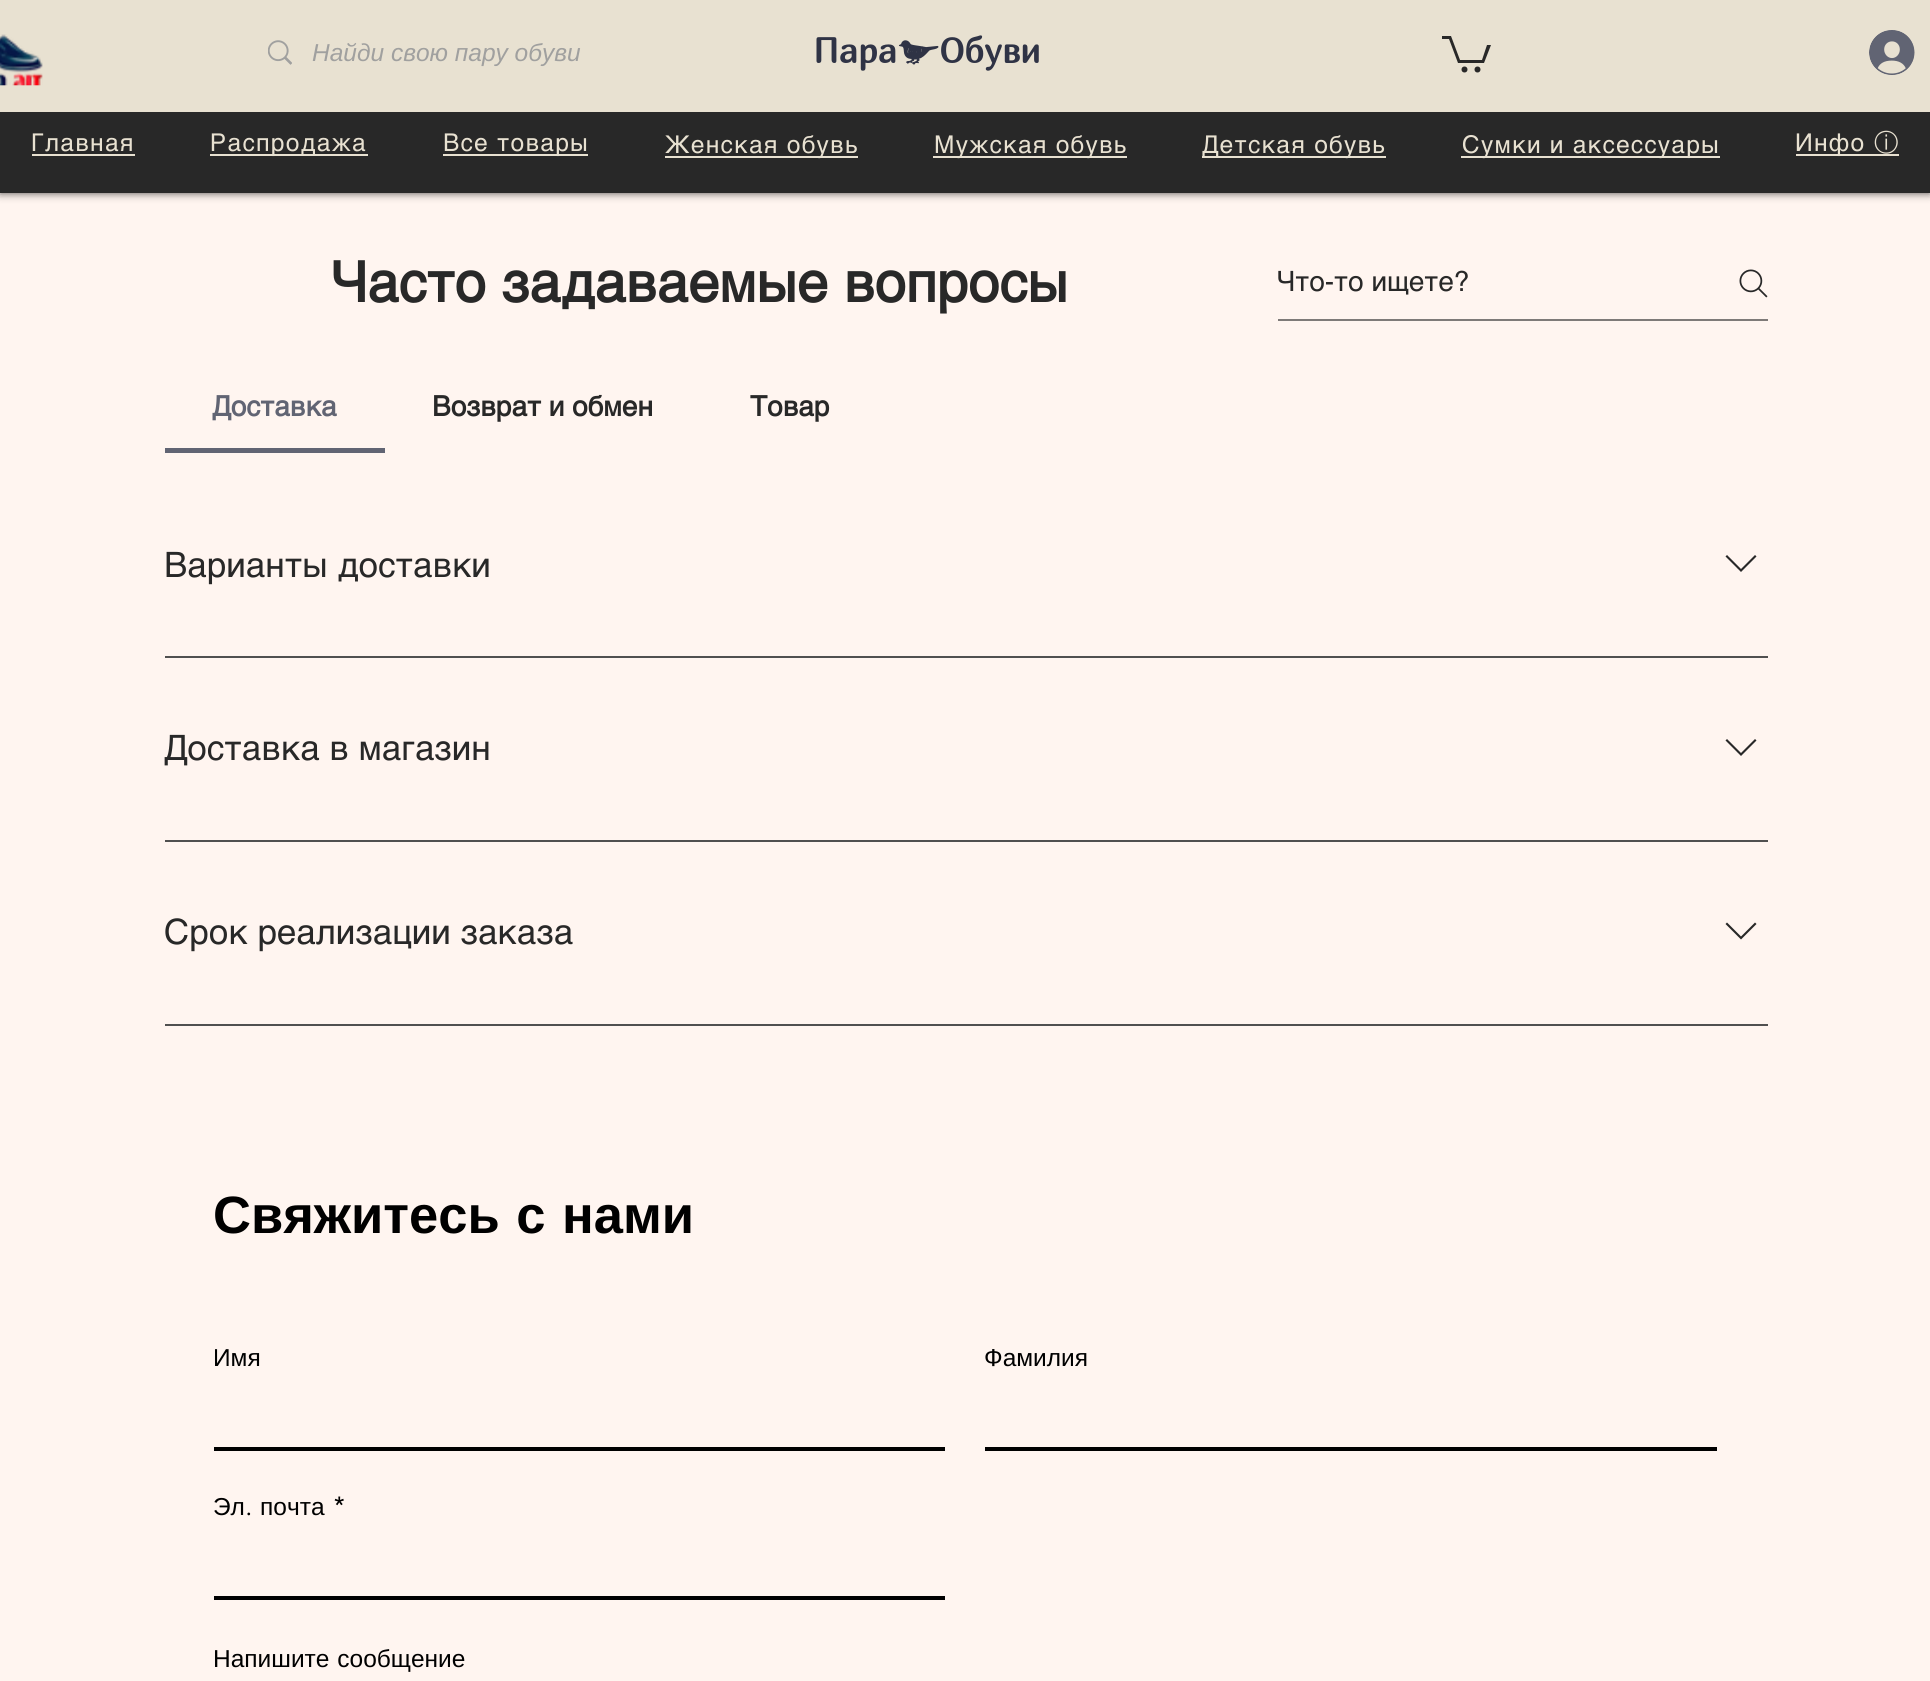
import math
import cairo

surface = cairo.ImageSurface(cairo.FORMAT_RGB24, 1930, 1681)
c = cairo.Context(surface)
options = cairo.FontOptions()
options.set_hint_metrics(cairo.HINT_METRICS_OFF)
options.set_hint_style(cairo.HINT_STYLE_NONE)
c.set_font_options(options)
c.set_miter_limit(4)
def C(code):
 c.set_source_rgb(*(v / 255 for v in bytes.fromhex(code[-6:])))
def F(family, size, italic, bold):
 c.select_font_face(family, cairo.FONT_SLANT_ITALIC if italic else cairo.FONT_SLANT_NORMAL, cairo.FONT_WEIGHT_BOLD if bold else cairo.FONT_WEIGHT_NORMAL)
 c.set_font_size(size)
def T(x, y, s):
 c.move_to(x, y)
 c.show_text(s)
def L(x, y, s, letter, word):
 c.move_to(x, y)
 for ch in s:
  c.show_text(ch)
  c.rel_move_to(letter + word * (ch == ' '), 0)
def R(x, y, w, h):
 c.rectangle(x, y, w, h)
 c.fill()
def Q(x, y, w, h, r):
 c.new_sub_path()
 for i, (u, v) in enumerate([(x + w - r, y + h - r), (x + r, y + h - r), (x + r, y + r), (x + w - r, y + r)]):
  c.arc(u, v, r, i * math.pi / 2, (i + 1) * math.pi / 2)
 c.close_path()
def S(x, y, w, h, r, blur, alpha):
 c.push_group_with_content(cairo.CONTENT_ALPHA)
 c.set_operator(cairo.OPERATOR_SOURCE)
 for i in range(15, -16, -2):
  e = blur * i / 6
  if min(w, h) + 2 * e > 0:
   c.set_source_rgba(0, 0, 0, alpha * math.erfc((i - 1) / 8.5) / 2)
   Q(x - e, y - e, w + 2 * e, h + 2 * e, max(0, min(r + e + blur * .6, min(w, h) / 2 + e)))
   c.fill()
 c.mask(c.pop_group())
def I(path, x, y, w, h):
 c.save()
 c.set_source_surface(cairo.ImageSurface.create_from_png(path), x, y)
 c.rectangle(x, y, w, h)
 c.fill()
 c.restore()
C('fff5f0')
c.paint()
C('000000')
S(0,0,1930,193,0,4.5,.7)
C('282828')
R(0,112,1930,81)
C('e8e1d1')
R(0,0,1930,112)
I('1.png',0,34,43,52)
I('2.png',268,40,24,25)
F('Liberation Sans',24.5,1,0)
C('a0a09f')
T(312,61,'Найди свою пару обуви')
F('Marmelad',35,0,1)
C('2f3345')
T(813,63,'Пара Обуви')
C('282828')
c.new_path()
c.move_to(1491,45)
c.line_to(1484,63)
c.line_to(1458,63)
c.line_to(1449,39)
c.line_to(1442,39)
c.line_to(1442,36)
c.line_to(1451,36)
c.line_to(1460,60)
c.line_to(1482,60)
c.line_to(1487,45)
c.fill()
c.arc(1477.5,69.5,3,0,2 * math.pi)
c.fill()
c.arc(1464.5,69.5,3,0,2 * math.pi)
c.fill()
I('3.png',1869,30,46,45)
F('helvetica',24.5,0,0)
C('e8e1d1')
L(31,151,'Главная',1.25,0)
R(32,154,103,2)
R(210,154,158,2)
L(210,151,'Распродажа',1.25,0)
R(443,154,145,2)
L(443,151,'Все товары',1.25,0)
R(665,156,193,2)
L(665,153,'Женская обувь',1.25,0)
R(933,156,194,2)
L(934,153,'Мужская обувь',1.25,0)
R(1202,156,184,2)
L(1202,153,'Детская обувь',1.25,0)
R(1461,156,259,2)
L(1462,153,'Сумки и аксессуары',1.25,0)
R(1796,154,103,2)
L(1795,151,'Инфо',1.25,0)
F('WenQuanYi Zen Hei Medium',24.5,0,0)
L(1874,151,'ⓘ',1.25,0)
F('helvetica',56,0,1)
C('282828')
T(331,302,'Часто задаваемые вопросы')
C('7e7a78')
R(1278,319,490,2)
F('helvetica',28,0,0)
C('282828')
T(1277,291,'Что-то ищете?')
I('4.png',1739,269,29,29)
C('616473')
R(165,448,220,5)
F('helvetica',28,0,1)
T(212,416,'Доставка')
C('282828')
T(432,416,'Возврат и обмен')
T(750,416,'Товар')
F('helvetica',35,0,0)
T(164,577,'Варианты доставки')
c.set_fill_rule(cairo.FILL_RULE_EVEN_ODD)
c.new_path()
c.move_to(1755,555)
c.line_to(1756.5,556.5)
c.line_to(1741,572)
c.line_to(1725.5,556.5)
c.line_to(1727,555)
c.line_to(1741,569)
c.close_path()
c.fill()
C('505050')
R(165,656,1603,2)
C('282828')
T(164,760,'Доставка в магазин')
c.new_path()
c.move_to(1755,739)
c.line_to(1756.5,740.5)
c.line_to(1741,756)
c.line_to(1725.5,740.5)
c.line_to(1727,739)
c.line_to(1741,753)
c.close_path()
c.fill()
C('505050')
R(165,840,1603,2)
C('282828')
T(164,944,'Срок реализации заказа')
c.new_path()
c.move_to(1755,922.5)
c.line_to(1756.5,924)
c.line_to(1741,939.5)
c.line_to(1725.5,924)
c.line_to(1727,922.5)
c.line_to(1741,936.5)
c.close_path()
c.fill()
C('505050')
R(165,1024,1603,2)
F('Liberation Sans',52.5,0,1)
C('000000')
L(213,1233,'Свяжитесь с нами',0,2)
F('Liberation Sans',24.5,0,0)
T(213,1366,'Имя')
R(214,1447,731,4)
T(984,1366,'Фамилия')
R(985,1447,732,4)
T(213,1515,'Эл')
F('futura',24.5,0,0)
T(245,1515,'.')
F('Liberation Sans',24.5,0,0)
T(260,1515,'почта')
F('futura',24.5,0,0)
T(332,1515,'*')
R(214,1596,731,4)
F('Liberation Sans',24.5,0,0)
L(213,1667,'Напишите сообщение',0,1)
surface.write_to_png('o.png')
